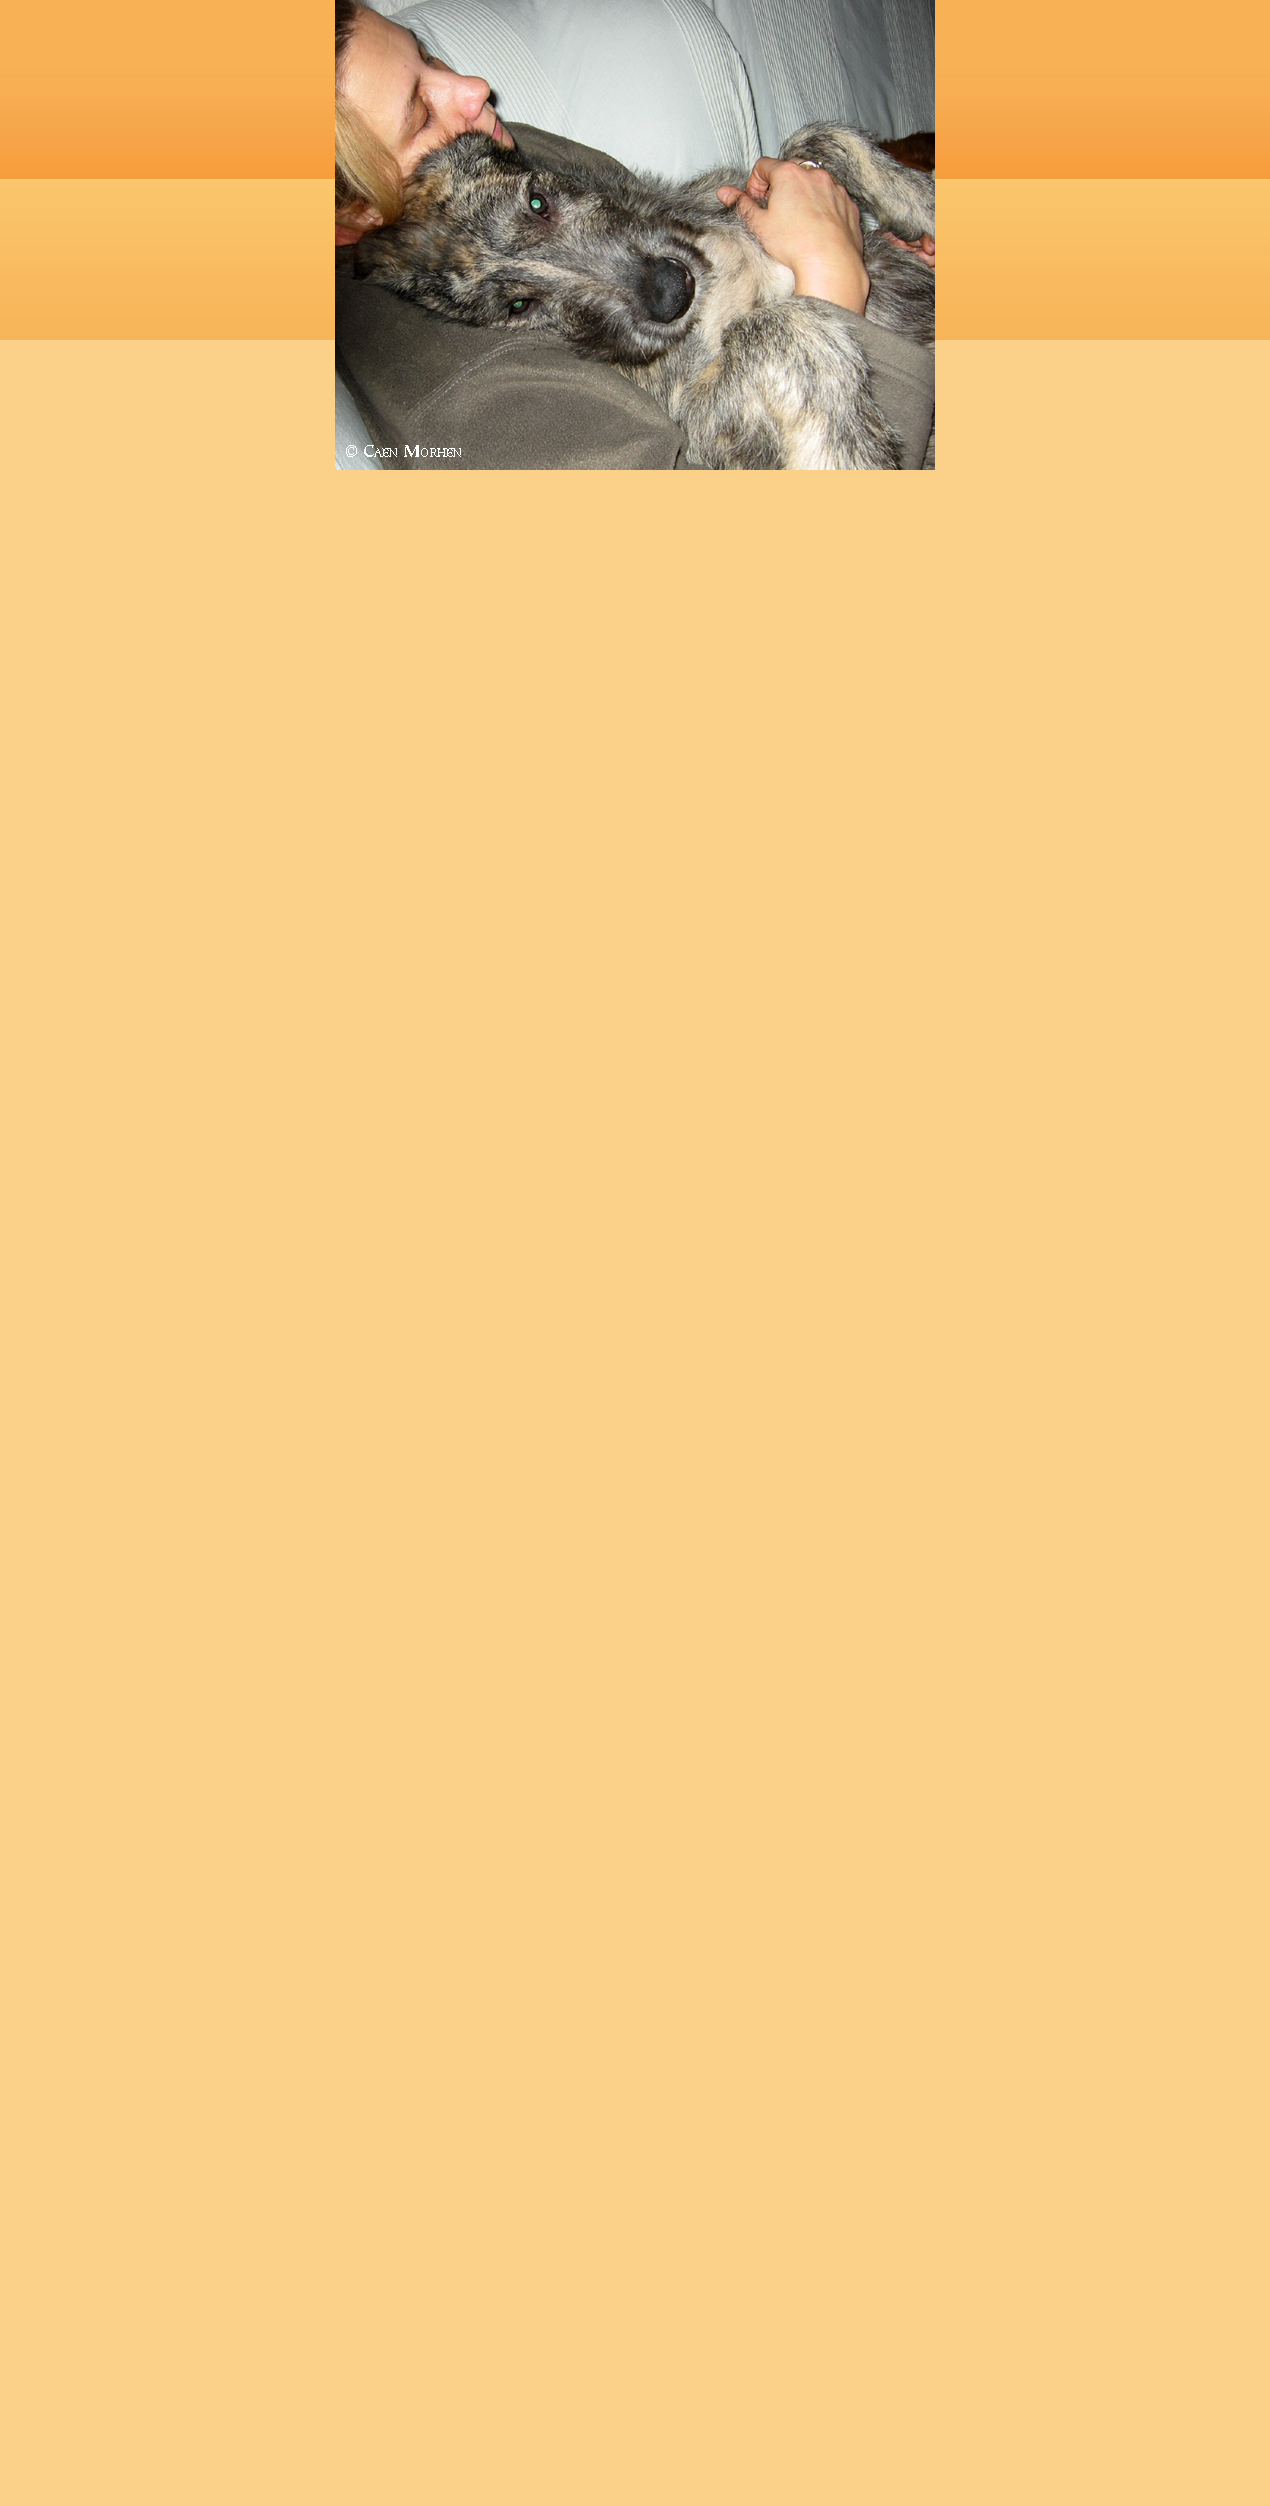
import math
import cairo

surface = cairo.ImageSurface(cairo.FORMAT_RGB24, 1270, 2506)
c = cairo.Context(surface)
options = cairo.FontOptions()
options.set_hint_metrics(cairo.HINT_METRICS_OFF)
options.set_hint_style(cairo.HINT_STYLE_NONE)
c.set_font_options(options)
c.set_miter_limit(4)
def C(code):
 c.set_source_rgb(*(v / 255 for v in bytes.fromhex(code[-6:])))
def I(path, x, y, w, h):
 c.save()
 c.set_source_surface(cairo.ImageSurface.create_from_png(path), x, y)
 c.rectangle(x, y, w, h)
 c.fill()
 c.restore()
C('fbd189')
c.paint()
I('1.png',0,0,1270,340)
I('2.png',335,0,600,470)
surface.write_to_png('o.png')
